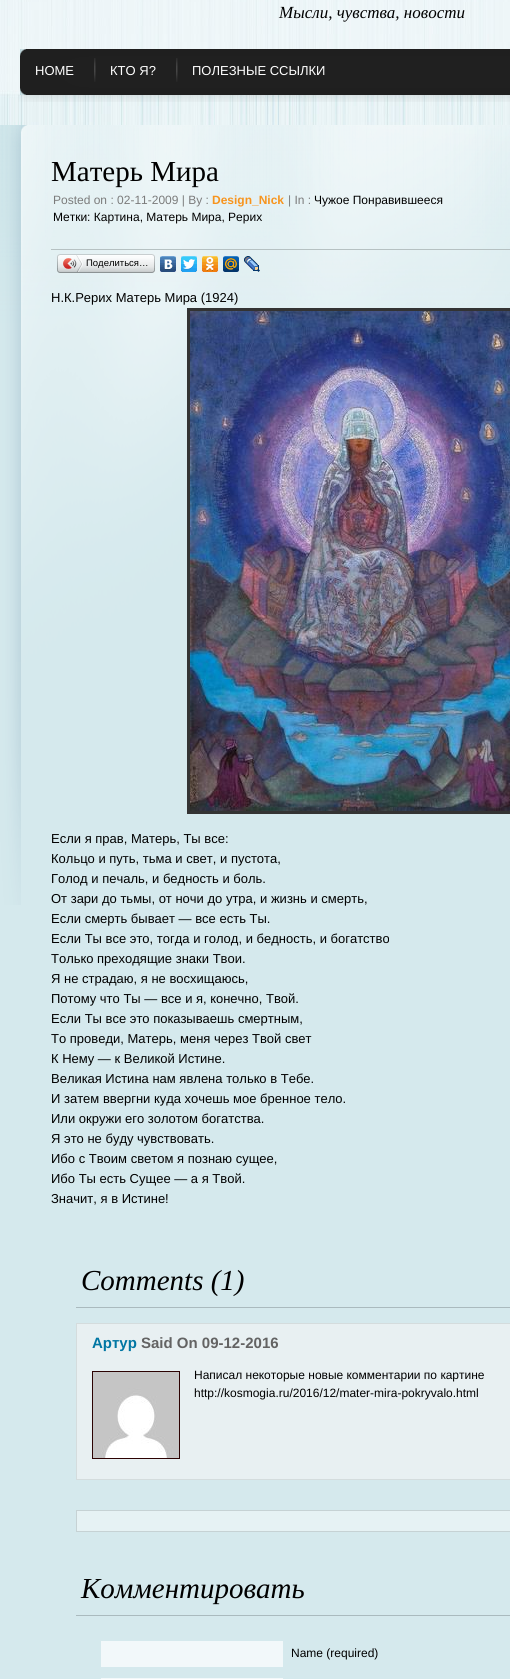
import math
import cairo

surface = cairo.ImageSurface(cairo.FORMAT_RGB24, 510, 1679)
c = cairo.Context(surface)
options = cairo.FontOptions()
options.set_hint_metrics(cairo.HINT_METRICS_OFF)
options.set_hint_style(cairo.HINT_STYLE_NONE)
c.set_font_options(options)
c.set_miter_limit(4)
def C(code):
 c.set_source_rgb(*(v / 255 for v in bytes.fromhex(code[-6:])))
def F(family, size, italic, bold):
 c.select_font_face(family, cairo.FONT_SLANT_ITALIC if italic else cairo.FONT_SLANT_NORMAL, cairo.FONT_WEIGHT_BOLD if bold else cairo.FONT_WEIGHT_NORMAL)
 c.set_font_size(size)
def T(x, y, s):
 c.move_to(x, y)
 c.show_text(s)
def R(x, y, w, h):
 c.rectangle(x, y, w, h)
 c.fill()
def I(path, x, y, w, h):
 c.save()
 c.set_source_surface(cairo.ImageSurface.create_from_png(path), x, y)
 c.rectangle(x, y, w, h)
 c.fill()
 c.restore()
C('d5e9ed')
c.paint()
I('1.png',0,0,510,125)
F('Liberation Serif',17,1,0)
C('000000')
T(279,18,'Мысли, чувства, новости')
I('2.png',20,49,490,46)
F('Liberation Sans',13,0,0)
C('ffffff')
T(35,75,'HOME')
I('3.png',94,58,2,24)
T(110,75,'КТО Я?')
I('3.png',176,58,2,24)
T(192,75,'ПОЛЕЗНЫЕ ССЫЛКИ')
I('4.png',18,95,492,7)
I('5.png',0,125,510,780)
C('b6c1c2')
R(51,249,459,1)
F('Liberation Serif',29,0,0)
C('000000')
T(51,181,'Матерь Мира')
F('Liberation Sans',12,0,0)
C('7b7b7b')
T(53,204,'Posted on : 02-11-2009 | By :')
F('Liberation Sans',12,0,1)
C('f7941d')
T(212,204,'Design_Nick')
F('Liberation Sans',12,0,0)
C('7b7b7b')
T(288,204,'| In :')
C('000000')
T(314,204,'Чужое Понравившееся')
T(53,221,'Метки: Картина, Матерь Мира, Рерих')
I('6.png',60,254,92,19)
I('7.png',57,254,3,19)
I('8.png',63,255,20,17)
F('Liberation Sans',9.5,0,0)
T(86,266,'Поделиться…')
I('9.png',152,254,3,19)
I('10.png',160,256,16,16)
I('11.png',181,256,16,16)
I('12.png',202,256,16,16)
I('13.png',223,256,16,16)
I('14.png',244,256,16,16)
F('Liberation Sans',13,0,0)
T(51,302,'Н.К.Рерих Матерь Мира (1924)')
c.rectangle(188.5,309.5,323,503)
C('333333')
c.set_line_width(3)
c.stroke()
I('15.png',190,311,320,500)
C('000000')
T(51,843,'Если я прав, Матерь, Ты все:')
T(51,863,'Кольцо и путь, тьма и свет, и пустота,')
T(51,883,'Голод и печаль, и бедность и боль.')
T(51,903,'От зари до тьмы, от ночи до утра, и жизнь и смерть,')
T(51,923,'Если смерть бывает — все есть Ты.')
T(51,943,'Если Ты все это, тогда и голод, и бедность, и богатство')
T(51,963,'Только преходящие знаки Твои.')
T(51,983,'Я не страдаю, я не восхищаюсь,')
T(51,1003,'Потому что Ты — все и я, конечно, Твой.')
T(51,1023,'Если Ты все это показываешь смертным,')
T(51,1043,'То проведи, Матерь, меня через Твой свет')
T(51,1063,'К Нему — к Великой Истине.')
T(51,1083,'Великая Истина нам явлена только в Тебе.')
T(51,1103,'И затем ввергни куда хочешь мое бренное тело.')
T(51,1123,'Или окружи его золотом богатства.')
T(51,1143,'Я это не буду чувствовать.')
T(51,1163,'Ибо с Твоим светом я познаю сущее,')
T(51,1183,'Ибо Ты есть Сущее — а я Твой.')
T(51,1203,'Значит, я в Истине!')
C('aababe')
R(76,1307,434,1)
F('Liberation Serif',29,1,0)
C('000000')
T(81,1290,'Comments (1)')
C('e8f0f2')
c.rectangle(76.5,1323.5,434,156)
c.fill_preserve()
C('d4dcdd')
c.set_line_width(1)
c.stroke()
F('Liberation Sans',15,0,1)
C('0076a3')
T(92,1348,'Артур')
C('636363')
T(141,1348,'Said On 09-12-2016')
c.rectangle(92.5,1371.5,87,87)
C('2c0202')
c.stroke()
I('16.png',93,1372,86,86)
F('Liberation Sans',12,0,0)
C('000000')
T(194,1379,'Написал некоторые новые комментарии по картине')
T(194,1397,'http://kosmogia.ru/2016/12/mater-mira-pokryvalo.html')
C('e6f2f4')
c.rectangle(76.5,1510.5,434,21)
c.fill_preserve()
C('c6d2d4')
c.stroke()
C('aababe')
R(76,1615,434,1)
F('Liberation Serif',29,1,0)
C('000000')
T(81,1598,'Комментировать')
C('f2f8fa')
R(101,1641,182,26)
F('Liberation Sans',12,0,0)
C('000000')
T(291,1657,'Name (required)')
C('f2f8fa')
R(101,1678,182,1)
surface.write_to_png('o.png')
